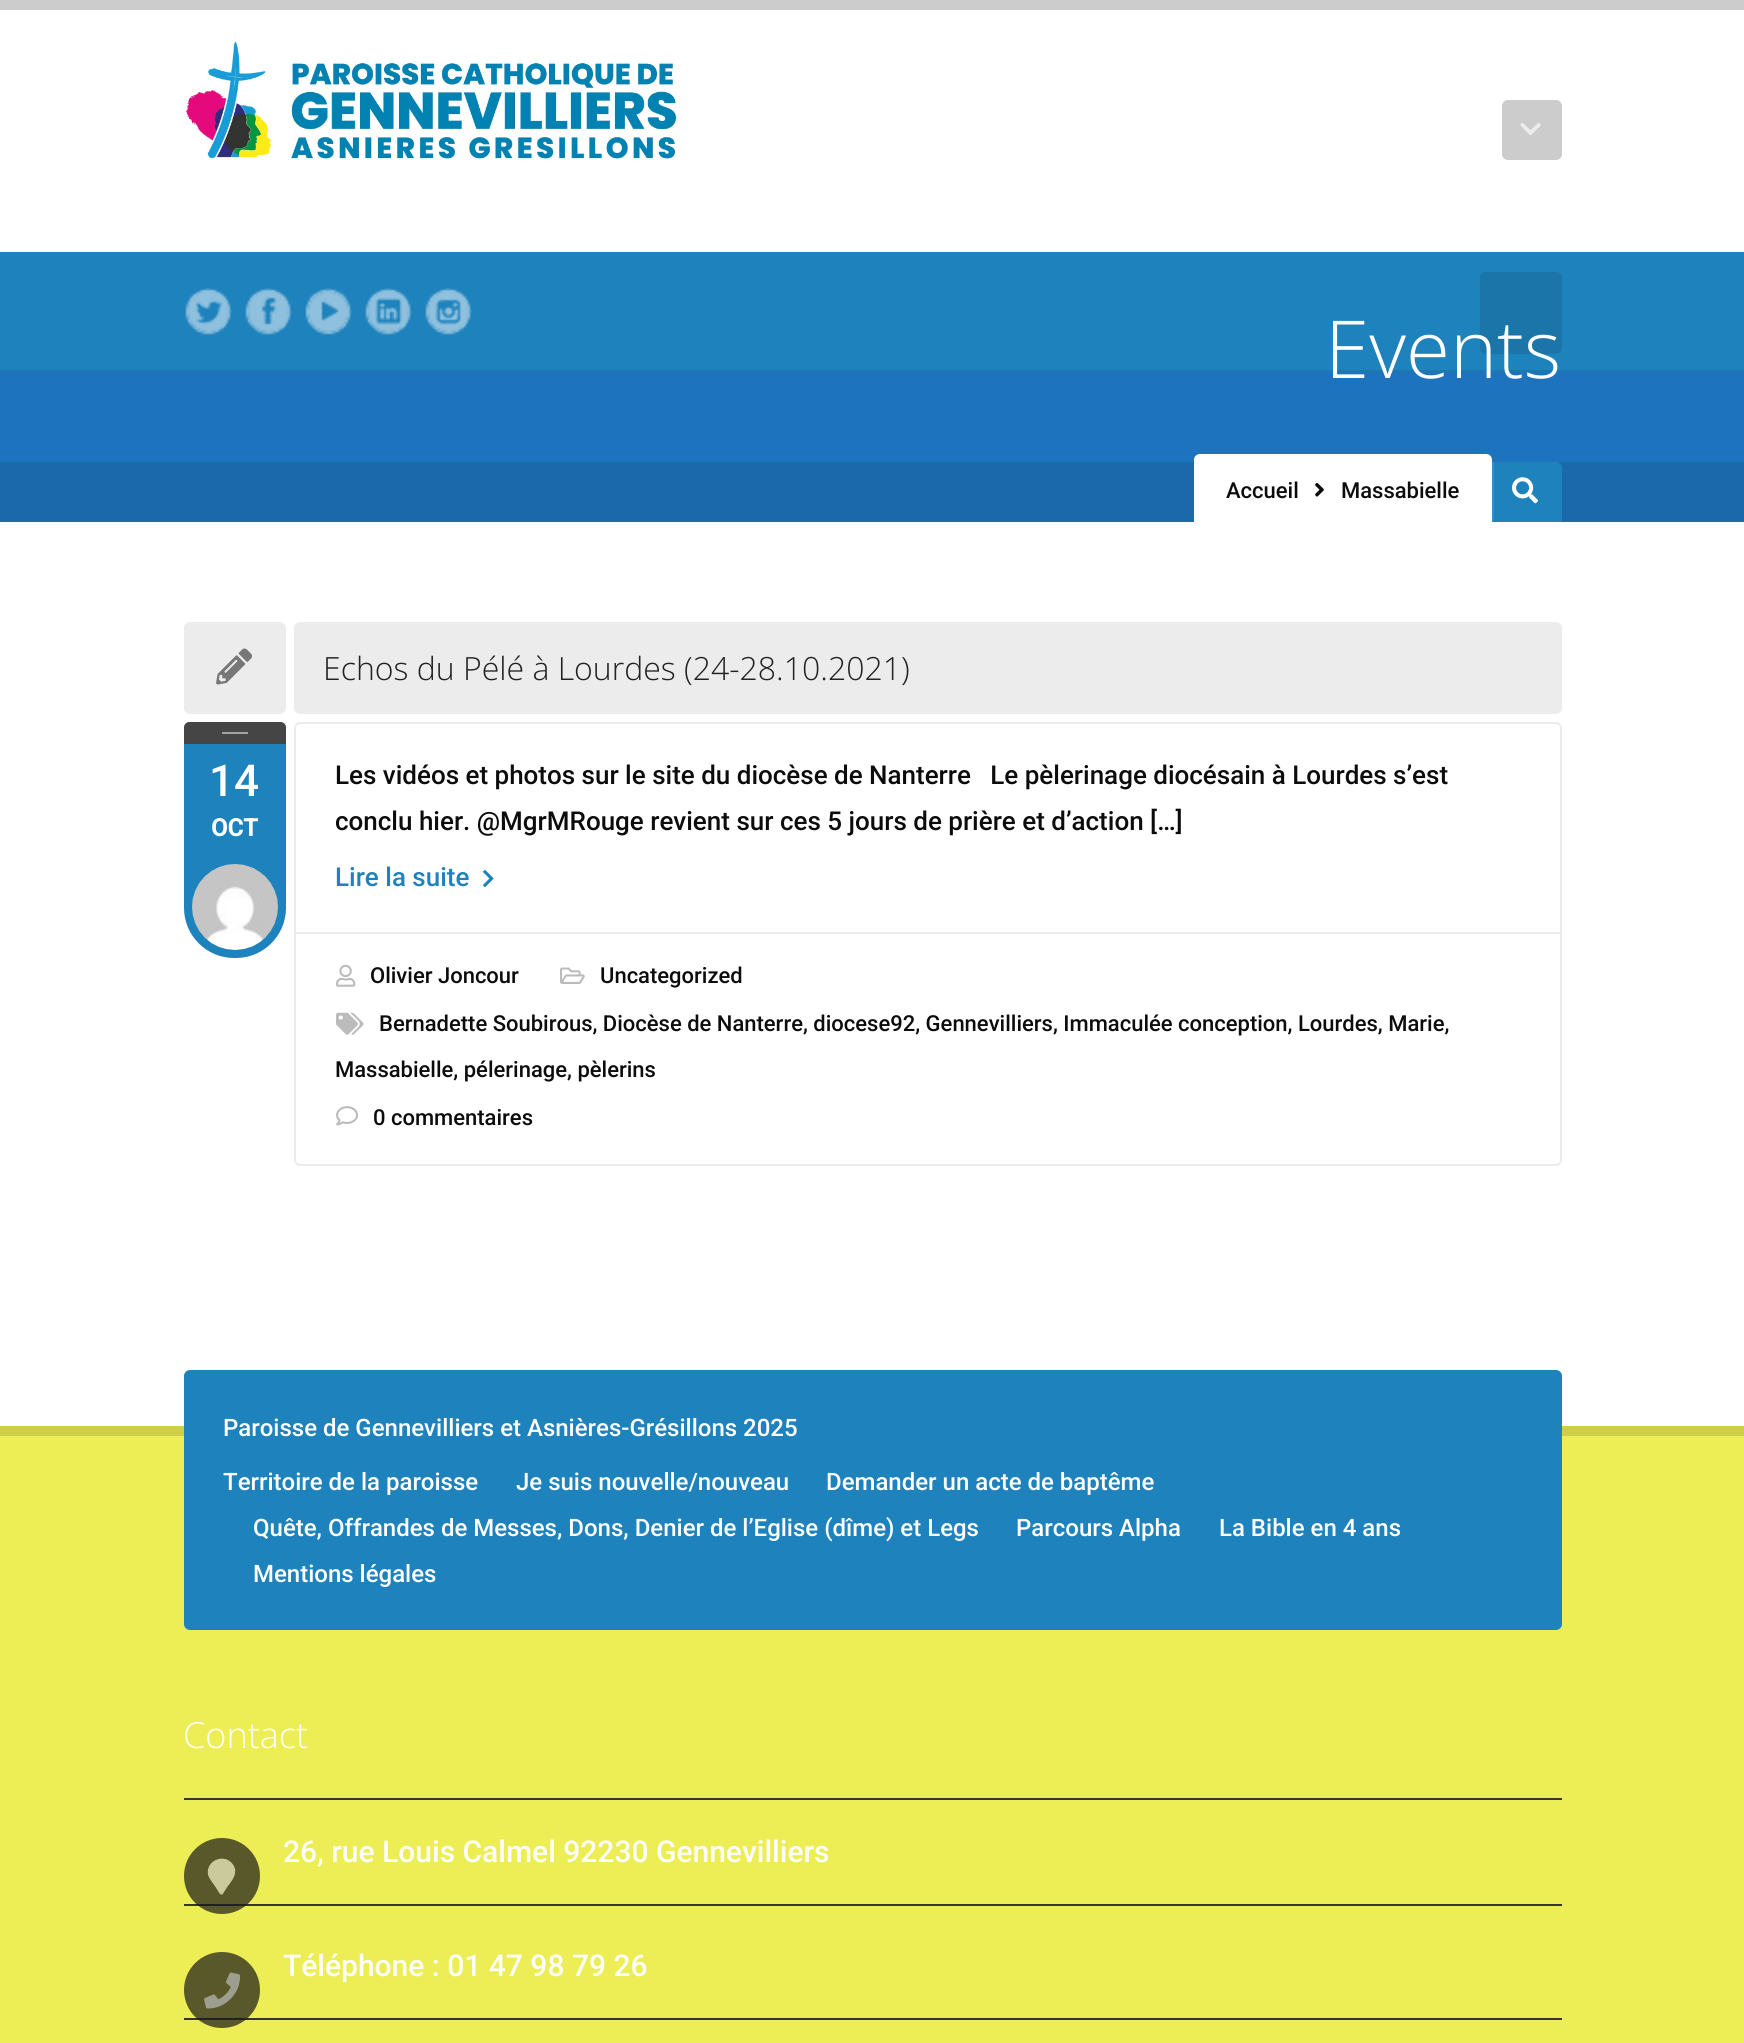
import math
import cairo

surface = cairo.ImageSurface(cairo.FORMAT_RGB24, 1744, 2043)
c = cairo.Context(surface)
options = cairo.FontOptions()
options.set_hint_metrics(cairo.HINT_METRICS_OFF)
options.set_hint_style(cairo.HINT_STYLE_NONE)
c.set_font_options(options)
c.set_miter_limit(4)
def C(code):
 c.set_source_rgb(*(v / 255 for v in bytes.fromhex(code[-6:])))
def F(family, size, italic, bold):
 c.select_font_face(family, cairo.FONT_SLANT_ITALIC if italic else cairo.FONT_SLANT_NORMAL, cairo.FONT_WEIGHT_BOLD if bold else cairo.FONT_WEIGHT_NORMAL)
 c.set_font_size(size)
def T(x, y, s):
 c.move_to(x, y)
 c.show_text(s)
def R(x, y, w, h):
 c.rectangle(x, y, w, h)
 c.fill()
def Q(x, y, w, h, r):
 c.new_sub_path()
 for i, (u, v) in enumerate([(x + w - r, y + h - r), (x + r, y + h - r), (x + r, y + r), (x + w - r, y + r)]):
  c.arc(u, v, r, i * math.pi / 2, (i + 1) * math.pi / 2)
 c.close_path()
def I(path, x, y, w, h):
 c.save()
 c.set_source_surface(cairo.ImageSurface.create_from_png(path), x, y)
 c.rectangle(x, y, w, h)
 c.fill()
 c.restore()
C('ffffff')
c.paint()
C('cccccc')
R(0,0,1744,10)
I('1.png',185,41,493,120)
Q(1502,100,60,60,6)
c.fill()
I('2.png',1520,122,21,14)
C('1e82bc')
R(0,252,1744,118)
I('3.png',185,288,47,47)
I('4.png',245,288,47,47)
I('5.png',305,288,47,47)
I('6.png',365,288,47,47)
I('7.png',425,288,47,47)
C('1b75a9')
Q(1480,272,82,82,6)
c.fill()
C('1c78ad')
R(0,370,1744,2)
C('1e73be')
R(0,372,1744,90)
F('Open Sans Light',80,0,0)
C('ffffff')
T(1325,378,'Events')
C('1b68ab')
R(0,462,1744,60)
C('ffffff')
c.new_path()
c.move_to(1200,454)
c.line_to(1486,454)
c.curve_to(1489.5,454,1492,456.5,1492,460)
c.line_to(1492,524)
c.line_to(1194,524)
c.line_to(1194,460)
c.curve_to(1194,456.5,1196.5,454,1200,454)
c.close_path()
c.fill()
F('Roboto Medium',22,0,0)
C('0c0c0c')
T(1226,498,'Accueil')
I('8.png',1315,482,9,15)
T(1341,498,'Massabielle')
C('1e82bc')
c.new_path()
c.move_to(1492,462)
c.line_to(1556,462)
c.curve_to(1559.5,462,1562,464.5,1562,468)
c.line_to(1562,522)
c.line_to(1492,522)
c.close_path()
c.fill()
C('358fc3')
R(1492,462,2,60)
I('9.png',1512,477,26,27)
C('ececec')
Q(184,622,102,92,6)
c.fill()
I('10.png',216,648,36,37)
C('1e82bc')
c.new_path()
c.move_to(190,722)
c.line_to(280,722)
c.curve_to(283.5,722,286,724.5,286,728)
c.line_to(286,908)
c.curve_to(286,935.5,263.5,958,236,958)
c.line_to(234,958)
c.curve_to(206.5,958,184,935.5,184,908)
c.line_to(184,728)
c.curve_to(184,724.5,186.5,722,190,722)
c.close_path()
c.fill()
C('454545')
c.new_path()
c.move_to(190,722)
c.line_to(280,722)
c.curve_to(283.5,722,286,724.5,286,728)
c.line_to(286,744)
c.line_to(184,744)
c.line_to(184,728)
c.curve_to(184,724.5,186.5,722,190,722)
c.close_path()
c.fill()
C('a2a2a2')
R(222,732,26,2)
F('Roboto Medium',44,0,0)
C('ffffff')
T(209,796,'14')
F('Roboto',24,0,1)
T(211,836,'OCT')
I('11.png',192,864,86,86)
C('ececec')
Q(294,622,1268,92,6)
c.fill()
F('Open Sans Light',32,0,0)
C('222222')
T(323,680,'Echos du Pélé à Lourdes (24-28.10.2021)')
Q(295,723,1266,442,5)
C('ececec')
c.stroke()
F('Roboto Medium',26,0,0)
C('0c0c0c')
T(335,784,'Les vidéos et photos sur le site du diocèse de Nanterre   Le pèlerinage diocésain à Lourdes s’est')
T(335,830,'conclu hier. @MgrMRouge revient sur ces 5 jours de prière et d’action […]')
C('1e82bc')
T(335,886,'Lire la suite')
I('12.png',483,870,11,17)
C('ececec')
R(296,932,1264,2)
I('13.png',336,964,20,23)
F('Roboto Medium',22,0,0)
C('0c0c0c')
T(370,983,'Olivier Joncour')
I('14.png',560,967,25,17)
T(600,983,'Uncategorized')
I('15.png',336,1012,28,23)
T(379,1031,'Bernadette Soubirous, Diocèse de Nanterre, diocese92, Gennevilliers, Immaculée conception, Lourdes, Marie,')
T(335,1077,'Massabielle, pélerinage, pèlerins')
I('16.png',336,1106,22,20)
T(373,1125,'0 commentaires')
C('eded55')
R(0,1436,1744,607)
C('cece4a')
R(0,1426,1744,10)
C('1e82bc')
Q(184,1370,1378,260,6)
c.fill()
F('Roboto Medium',24,0,0)
C('ffffff')
T(223,1436,'Paroisse de Gennevilliers et Asnières-Grésillons 2025')
T(223,1490,'Territoire de la paroisse')
T(516,1490,'Je suis nouvelle/nouveau')
T(826,1490,'Demander un acte de baptême')
T(253,1536,'Quête, Offrandes de Messes, Dons, Denier de l’Eglise (dîme) et Legs')
T(1016,1536,'Parcours Alpha')
T(1219,1536,'La Bible en 4 ans')
T(253,1582,'Mentions légales')
F('Open Sans Light',36,0,0)
T(183,1748,'Contact')
C('353535')
R(184,1798,1378,2)
R(184,1904,1378,2)
c.set_source_rgba(0.098,0.098,0.098,0.7)
c.new_path()
c.arc(222,1876,38,0,2 * math.pi)
c.fill()
C('caca9c')
c.new_path()
c.move_to(220,1894)
c.line_to(214.5,1885.5)
c.curve_to(212,1882,209,1878.5,208,1874.5)
c.curve_to(205.5,1860.5,224.5,1852.5,233,1864.5)
c.curve_to(239,1873.5,231.5,1881,226.5,1888)
c.line_to(222.5,1894.5)
c.curve_to(221.5,1894.5,220.5,1894.5,220,1894)
c.close_path()
c.fill()
F('Roboto Medium',30,0,0)
C('ffffff')
T(283,1862,'26, rue Louis Calmel 92230 Gennevilliers')
C('353535')
R(184,2018,1378,2)
c.set_source_rgba(0.098,0.098,0.098,0.7)
c.new_path()
c.arc(222,1990,38,0,2 * math.pi)
c.fill()
I('17.png',204,1972,36,37)
C('ffffff')
T(283,1976,'Téléphone : 01 47 98 79 26')
surface.write_to_png('o.png')
